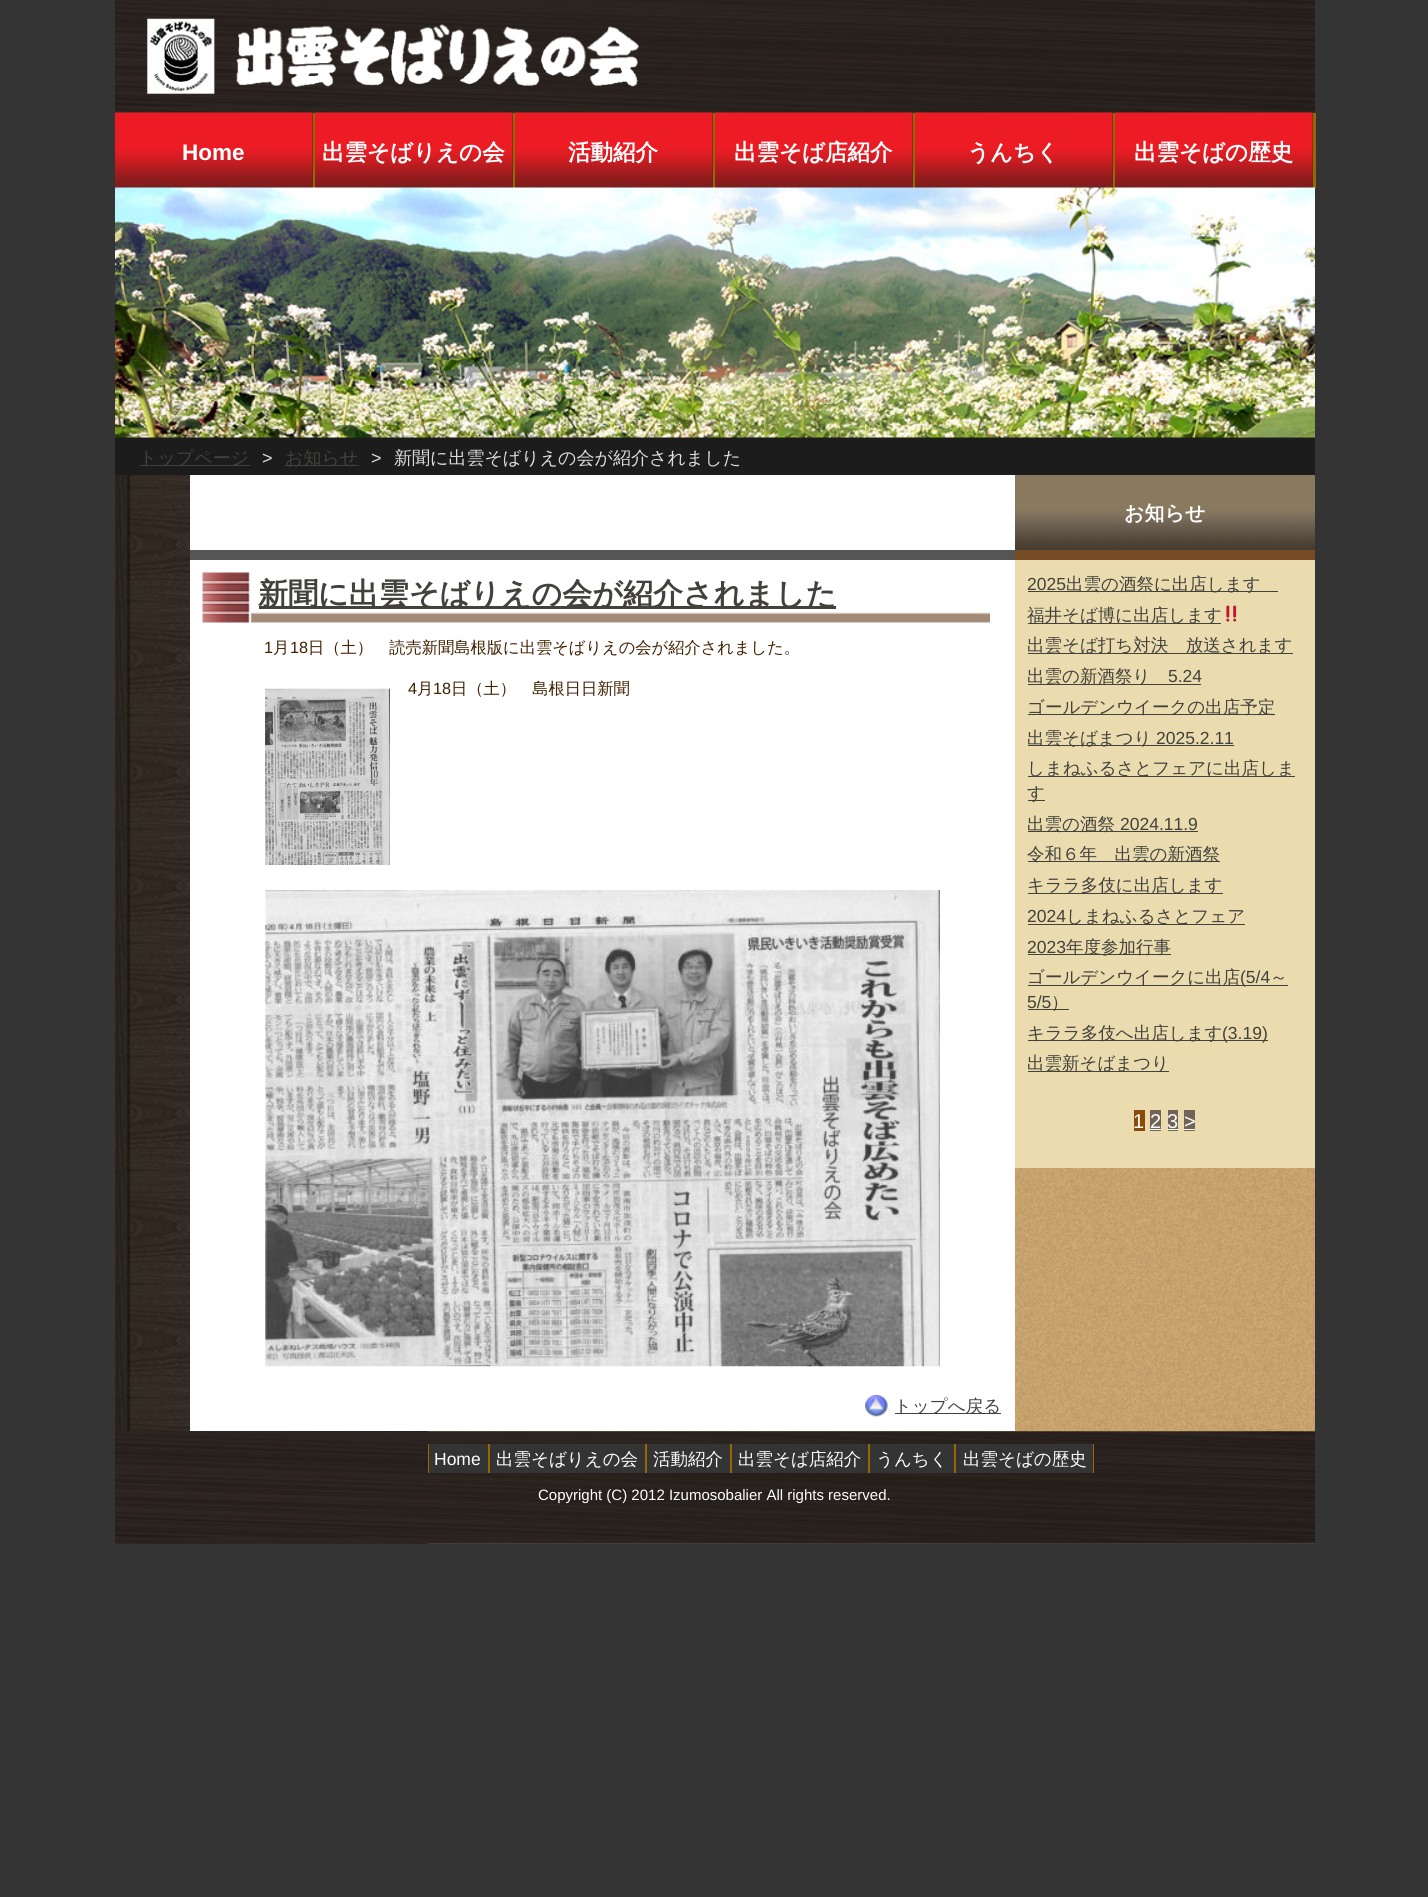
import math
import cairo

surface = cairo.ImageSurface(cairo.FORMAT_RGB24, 1428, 1897)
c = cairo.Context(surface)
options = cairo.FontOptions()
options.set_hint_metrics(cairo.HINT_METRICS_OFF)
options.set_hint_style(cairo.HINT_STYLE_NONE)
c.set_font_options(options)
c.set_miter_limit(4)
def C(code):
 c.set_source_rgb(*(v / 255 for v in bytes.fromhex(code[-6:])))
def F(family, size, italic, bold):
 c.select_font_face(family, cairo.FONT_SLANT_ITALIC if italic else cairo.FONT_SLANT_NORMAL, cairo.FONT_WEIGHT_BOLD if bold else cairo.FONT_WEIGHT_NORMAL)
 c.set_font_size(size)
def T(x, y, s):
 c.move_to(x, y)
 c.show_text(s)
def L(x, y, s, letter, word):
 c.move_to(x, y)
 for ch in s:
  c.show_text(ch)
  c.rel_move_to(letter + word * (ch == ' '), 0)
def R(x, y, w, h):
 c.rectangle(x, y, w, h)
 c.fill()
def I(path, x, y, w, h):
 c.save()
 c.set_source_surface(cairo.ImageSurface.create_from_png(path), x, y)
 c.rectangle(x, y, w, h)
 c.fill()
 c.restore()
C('343434')
c.paint()
I('1.png',115,475,1200,1069)
I('2.png',115,0,1200,113)
I('3.png',147,18,492,76)
C('996600')
R(313,113,2,75)
I('4.png',115,112,198,76)
F('Liberation Sans',22.5,0,1)
C('ffffff')
T(182,160,'Home')
C('996600')
R(513,113,2,75)
I('5.png',315,112,198,76)
F('WenQuanYi Zen Hei',22.5,0,1)
C('ffffff')
T(322,160,'出雲そばりえの会')
C('996600')
R(713,113,2,75)
I('6.png',515,112,198,76)
C('ffffff')
T(568,160,'活動紹介')
C('996600')
R(913,113,2,75)
I('7.png',715,112,198,76)
C('ffffff')
T(734,160,'出雲そば店紹介')
C('996600')
R(1113,113,2,75)
I('8.png',915,112,198,76)
C('ffffff')
T(967,160,'うんちく')
C('996600')
R(1313,113,3,75)
I('9.png',1115,112,198,76)
C('ffffff')
T(1134,160,'出雲そばの歴史')
C('1c1c1c')
R(115,437,1200,38)
I('10.png',115,187,1200,251)
C('42413c')
R(140,465,110,1)
F('WenQuanYi Zen Hei Medium',18,0,0)
T(139,464,'トップページ')
F('Liberation Sans',18,0,0)
C('dddddd')
L(262,464,'>',12,0)
C('42413c')
R(285,465,74,1)
F('WenQuanYi Zen Hei Medium',18,0,0)
T(285,464,'お知らせ')
F('Liberation Sans',18,0,0)
C('dddddd')
L(371,464,'>',12,0)
F('WenQuanYi Zen Hei Medium',18,0,0)
T(394,464,'新聞に出雲そばりえの会が紹介されました')
C('ffffff')
R(190,475,825,956)
C('555555')
R(190,550,825,10)
I('11.png',202,572,788,51)
C('42413c')
R(259,606,577,3)
F('WenQuanYi Zen Hei',30,0,1)
T(258,604,'新聞に出雲そばりえの会が紹介されました')
F('Liberation Sans',16.25,0,0)
C('402000')
T(264,653,'1')
F('WenQuanYi Zen Hei Medium',16.25,0,0)
T(273,653,'月')
F('Liberation Sans',16.25,0,0)
T(290,653,'18')
F('WenQuanYi Zen Hei Medium',16.25,0,0)
T(308,653,'日（土）　読売新聞島根版に出雲そばりえの会が紹介されました。')
I('12.png',265,688,125,177)
F('Liberation Sans',16.25,0,0)
T(408,694,'4')
F('WenQuanYi Zen Hei Medium',16.25,0,0)
T(417,694,'月')
F('Liberation Sans',16.25,0,0)
T(433,694,'18')
F('WenQuanYi Zen Hei Medium',16.25,0,0)
T(451,694,'日（土）　島根日日新聞')
I('13.png',265,890,675,477)
I('14.png',865,1395,23,22)
C('42413c')
R(895,1413,106,1)
F('WenQuanYi Zen Hei Medium',17.5,0,0)
T(894,1412,'トップへ戻る')
C('eadcae')
R(1015,560,300,608)
I('15.png',1015,475,300,75)
C('754c24')
R(1015,550,300,10)
F('WenQuanYi Zen Hei',20,0,1)
C('ffffff')
T(1124,520,'お知らせ')
F('Liberation Sans',17.5,0,0)
C('42413c')
T(1027,590,'2025')
R(1028,591,250,1)
F('WenQuanYi Zen Hei Medium',17.5,0,0)
T(1066,590,'出雲の酒祭に出店します')
R(1028,623,193,1)
T(1027,621,'福井そば博に出店します')
I('16.png',1226,605,11,17)
R(1028,653,265,1)
T(1027,651,'出雲そば打ち対決　放送されます')
R(1028,684,173,1)
T(1027,682,'出雲の新酒祭り')
F('Liberation Sans',17.5,0,0)
T(1168,682,'5.24')
R(1028,714,247,1)
F('WenQuanYi Zen Hei Medium',17.5,0,0)
T(1027,713,'ゴールデンウイークの出店予定')
R(1028,745,206,1)
T(1027,744,'出雲そばまつり')
F('Liberation Sans',17.5,0,0)
T(1156,744,'2025.2.11')
R(1028,776,267,1)
F('WenQuanYi Zen Hei Medium',17.5,0,0)
T(1027,774,'しまねふるさとフェアに出店しま')
R(1028,800,17,1)
T(1027,799,'す')
R(1028,831,170,1)
T(1027,830,'出雲の酒祭')
F('Liberation Sans',17.5,0,0)
T(1120,830,'2024.11.9')
R(1028,861,192,1)
F('WenQuanYi Zen Hei Medium',17.5,0,0)
T(1027,860,'令和６年　出雲の新酒祭')
R(1028,893,195,1)
T(1027,891,'キララ多伎に出店します')
F('Liberation Sans',17.5,0,0)
T(1027,922,'2024')
R(1028,924,217,1)
F('WenQuanYi Zen Hei Medium',17.5,0,0)
T(1066,922,'しまねふるさとフェア')
F('Liberation Sans',17.5,0,0)
T(1027,953,'2023')
R(1028,954,143,1)
F('WenQuanYi Zen Hei Medium',17.5,0,0)
T(1066,953,'年度参加行事')
R(1028,985,260,1)
T(1027,983,'ゴールデンウイークに出店')
F('Liberation Sans',17.5,0,0)
T(1240,983,'(5/4')
F('WenQuanYi Zen Hei Medium',17.5,0,0)
T(1270,983,'～')
F('Liberation Sans',17.5,0,0)
T(1027,1008,'5/5')
R(1028,1009,41,1)
F('WenQuanYi Zen Hei Medium',17.5,0,0)
T(1051,1008,'）')
R(1028,1040,240,1)
T(1027,1039,'キララ多伎へ出店します')
F('Liberation Sans',17.5,0,0)
T(1222,1039,'(3.19)')
R(1028,1071,141,1)
F('WenQuanYi Zen Hei Medium',17.5,0,0)
T(1027,1069,'出雲新そばまつり')
C('8a4b08')
R(1134,1110,11,21)
F('Liberation Sans',20,0,0)
C('ffffff')
T(1133,1128,'1')
C('736357')
R(1150,1110,11,21)
C('ffffff')
T(1150,1128,'2')
R(1150,1129,11,1)
C('736357')
R(1168,1110,10,21)
C('ffffff')
T(1167,1128,'3')
R(1168,1129,10,1)
C('736357')
R(1184,1110,11,21)
C('ffffff')
T(1184,1128,'>')
R(1184,1129,11,1)
I('17.png',115,1431,1200,113)
C('343434')
R(429,1444,59,29)
C('996600')
R(488,1444,2,29)
R(428,1444,1,29)
F('Liberation Sans',17.5,0,0)
C('ffffff')
T(434,1465,'Home')
C('343434')
R(490,1444,155,29)
C('996600')
R(645,1444,2,29)
F('WenQuanYi Zen Hei Medium',17.5,0,0)
C('ffffff')
T(496,1465,'出雲そばりえの会')
C('343434')
R(647,1444,83,29)
C('996600')
R(730,1444,2,29)
C('ffffff')
T(653,1465,'活動紹介')
C('343434')
R(732,1444,136,29)
C('996600')
R(868,1444,2,29)
C('ffffff')
T(738,1465,'出雲そば店紹介')
C('343434')
R(870,1444,84,29)
C('996600')
R(954,1444,2,29)
C('ffffff')
T(876,1465,'うんちく')
C('343434')
R(956,1444,137,29)
C('996600')
R(1093,1444,1,29)
C('ffffff')
T(963,1465,'出雲そばの歴史')
F('Liberation Sans',15,0,0)
T(538,1500,'Copyright (C) 2012 Izumosobalier All rights reserved.')
surface.write_to_png('o.png')
